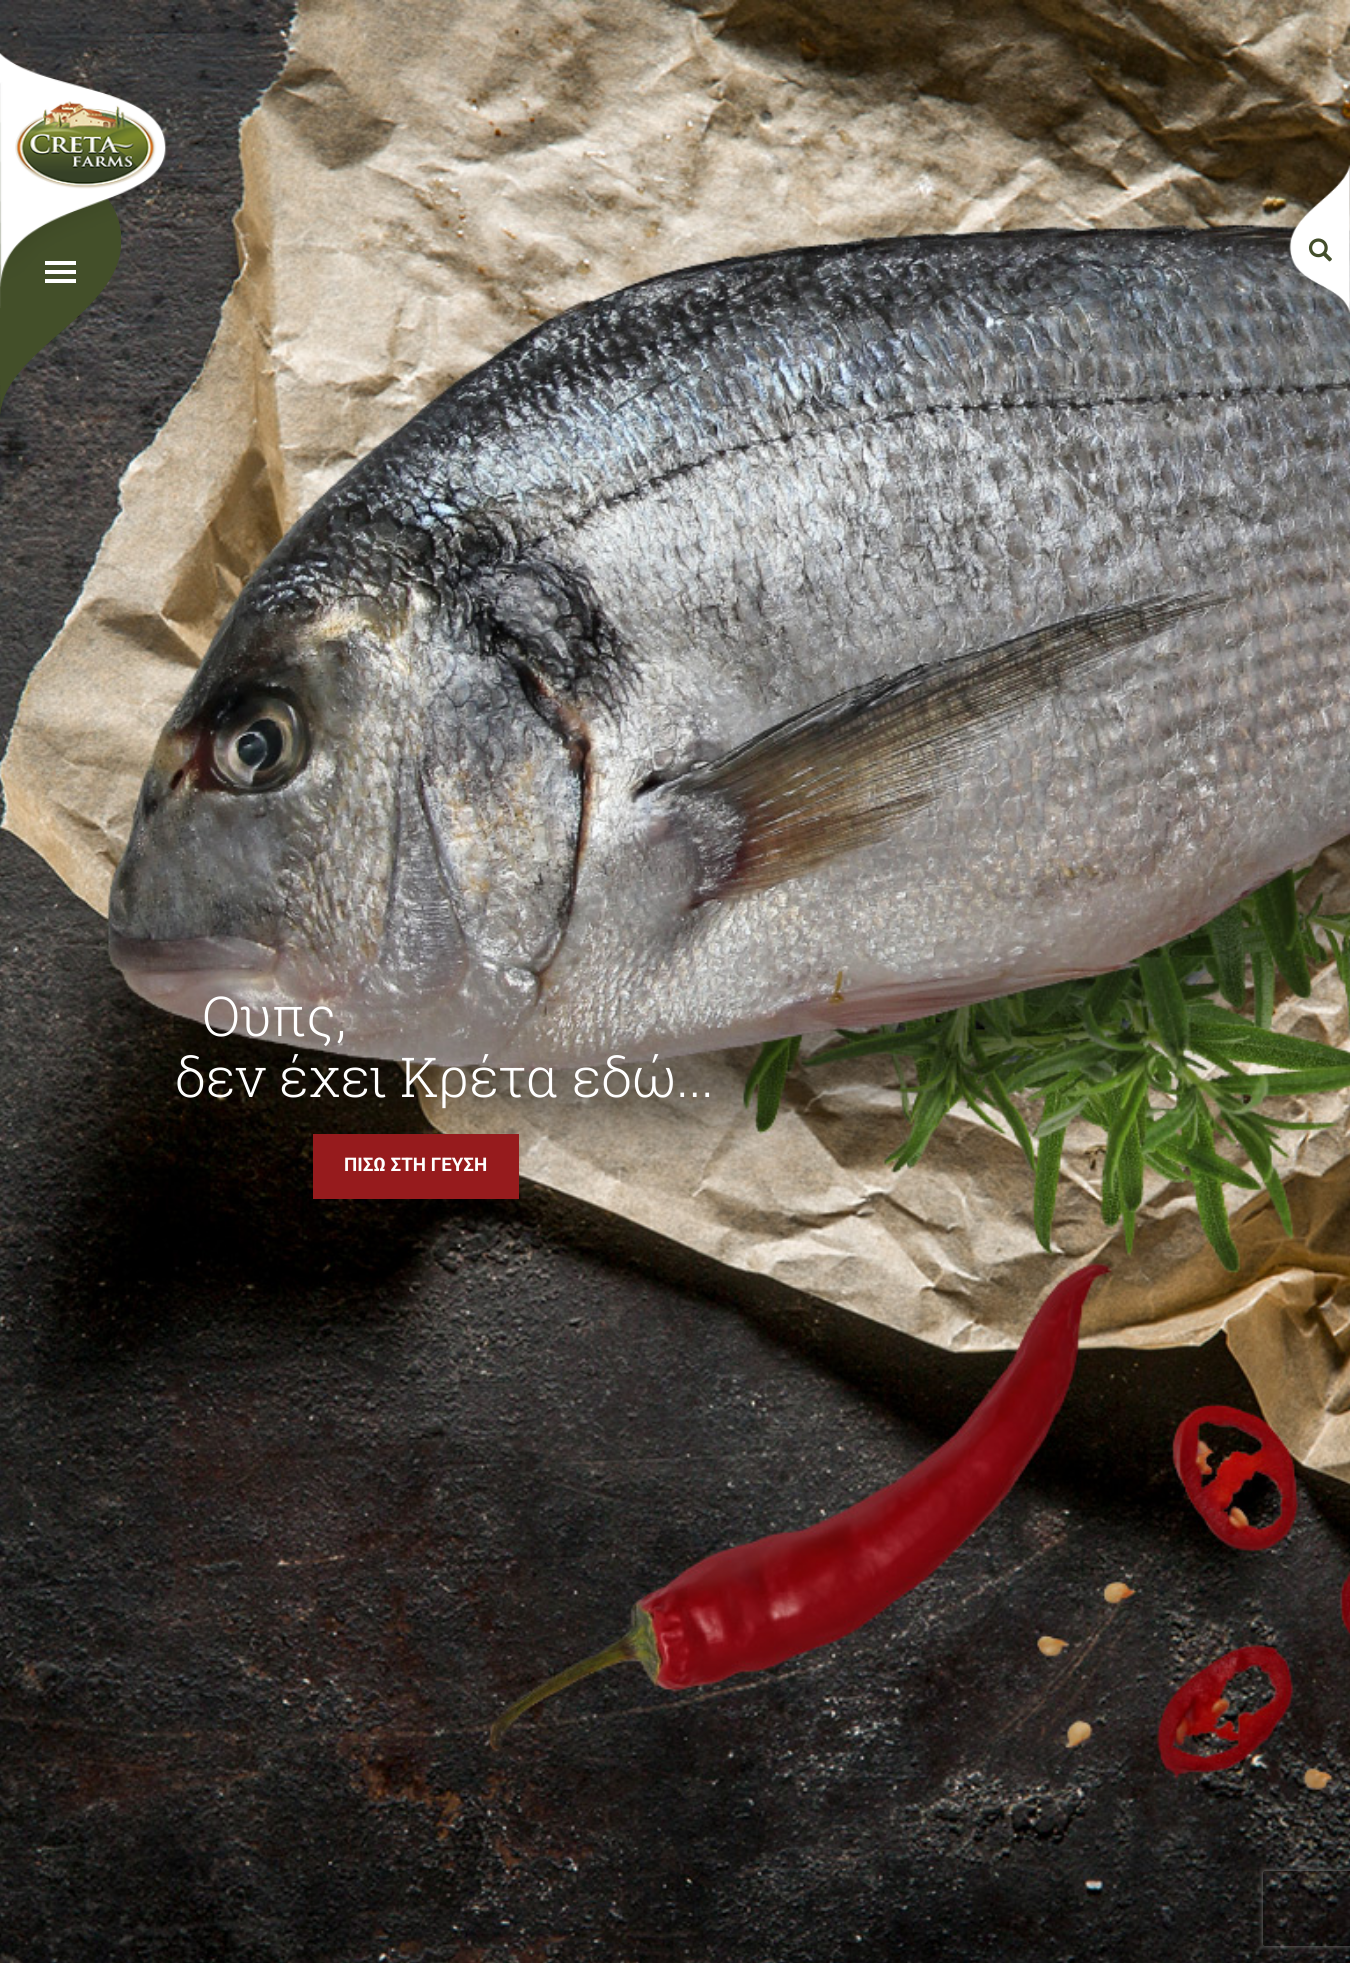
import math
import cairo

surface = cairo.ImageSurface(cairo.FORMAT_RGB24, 1350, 1963)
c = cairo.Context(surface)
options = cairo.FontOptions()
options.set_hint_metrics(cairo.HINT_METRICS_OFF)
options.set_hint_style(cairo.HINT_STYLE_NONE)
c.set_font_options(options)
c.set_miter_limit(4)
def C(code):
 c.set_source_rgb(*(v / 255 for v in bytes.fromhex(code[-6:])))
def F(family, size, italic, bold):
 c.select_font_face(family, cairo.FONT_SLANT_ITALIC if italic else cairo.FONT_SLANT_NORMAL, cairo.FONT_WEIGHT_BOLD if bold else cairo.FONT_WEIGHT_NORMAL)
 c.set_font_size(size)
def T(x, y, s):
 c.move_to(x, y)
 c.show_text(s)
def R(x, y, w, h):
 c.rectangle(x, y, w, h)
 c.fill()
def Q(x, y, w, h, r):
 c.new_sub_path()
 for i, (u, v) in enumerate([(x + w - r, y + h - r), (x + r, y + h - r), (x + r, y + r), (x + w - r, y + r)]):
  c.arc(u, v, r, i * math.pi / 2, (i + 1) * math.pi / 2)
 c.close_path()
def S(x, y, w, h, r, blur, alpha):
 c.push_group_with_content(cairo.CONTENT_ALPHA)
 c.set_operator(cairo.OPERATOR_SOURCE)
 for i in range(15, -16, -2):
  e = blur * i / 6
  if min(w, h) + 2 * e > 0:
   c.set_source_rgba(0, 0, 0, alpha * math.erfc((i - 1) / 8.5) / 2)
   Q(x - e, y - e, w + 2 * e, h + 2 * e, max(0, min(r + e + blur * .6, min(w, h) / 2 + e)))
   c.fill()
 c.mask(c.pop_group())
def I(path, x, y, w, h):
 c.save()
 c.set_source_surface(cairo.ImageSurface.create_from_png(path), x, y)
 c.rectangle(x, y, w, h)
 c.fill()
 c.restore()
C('ffffff')
c.paint()
I('1.png',0,0,1350,1963)
I('3.png',0,99,121,316)
I('2.png',0,53,169,255)
C('ffffff')
R(45,261,31,4)
R(45,270,31,4)
R(45,279,31,4)
I('4.png',1289,164,61,149)
I('5.png',1308,238,24,24)
F('Roboto Slab Light',55,0,0)
T(202,1036,'Ουπς,')
T(175,1097,'δεν έχει Κρέτα εδώ...')
C('961b1d')
R(313,1134,206,65)
F('Roboto',18.75,0,1)
C('ffffff')
T(344,1171,'ΠΙΣΩ ΣΤΗ ΓΕΥΣΗ')
c.save()
c.set_fill_rule(cairo.FILL_RULE_EVEN_ODD)
c.new_path()
c.move_to(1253,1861)
c.line_to(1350,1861)
c.line_to(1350,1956)
c.line_to(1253,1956)
c.close_path()
c.move_to(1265.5,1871)
c.line_to(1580.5,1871)
c.curve_to(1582,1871,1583,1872,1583,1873.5)
c.line_to(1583,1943.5)
c.curve_to(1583,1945,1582,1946,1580.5,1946)
c.line_to(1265.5,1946)
c.curve_to(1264,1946,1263,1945,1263,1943.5)
c.line_to(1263,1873.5)
c.curve_to(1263,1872,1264,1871,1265.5,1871)
c.close_path()
c.clip()
C('808080')
S(1263,1871,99,75,2.5,3,1)
c.restore()
surface.write_to_png('o.png')
